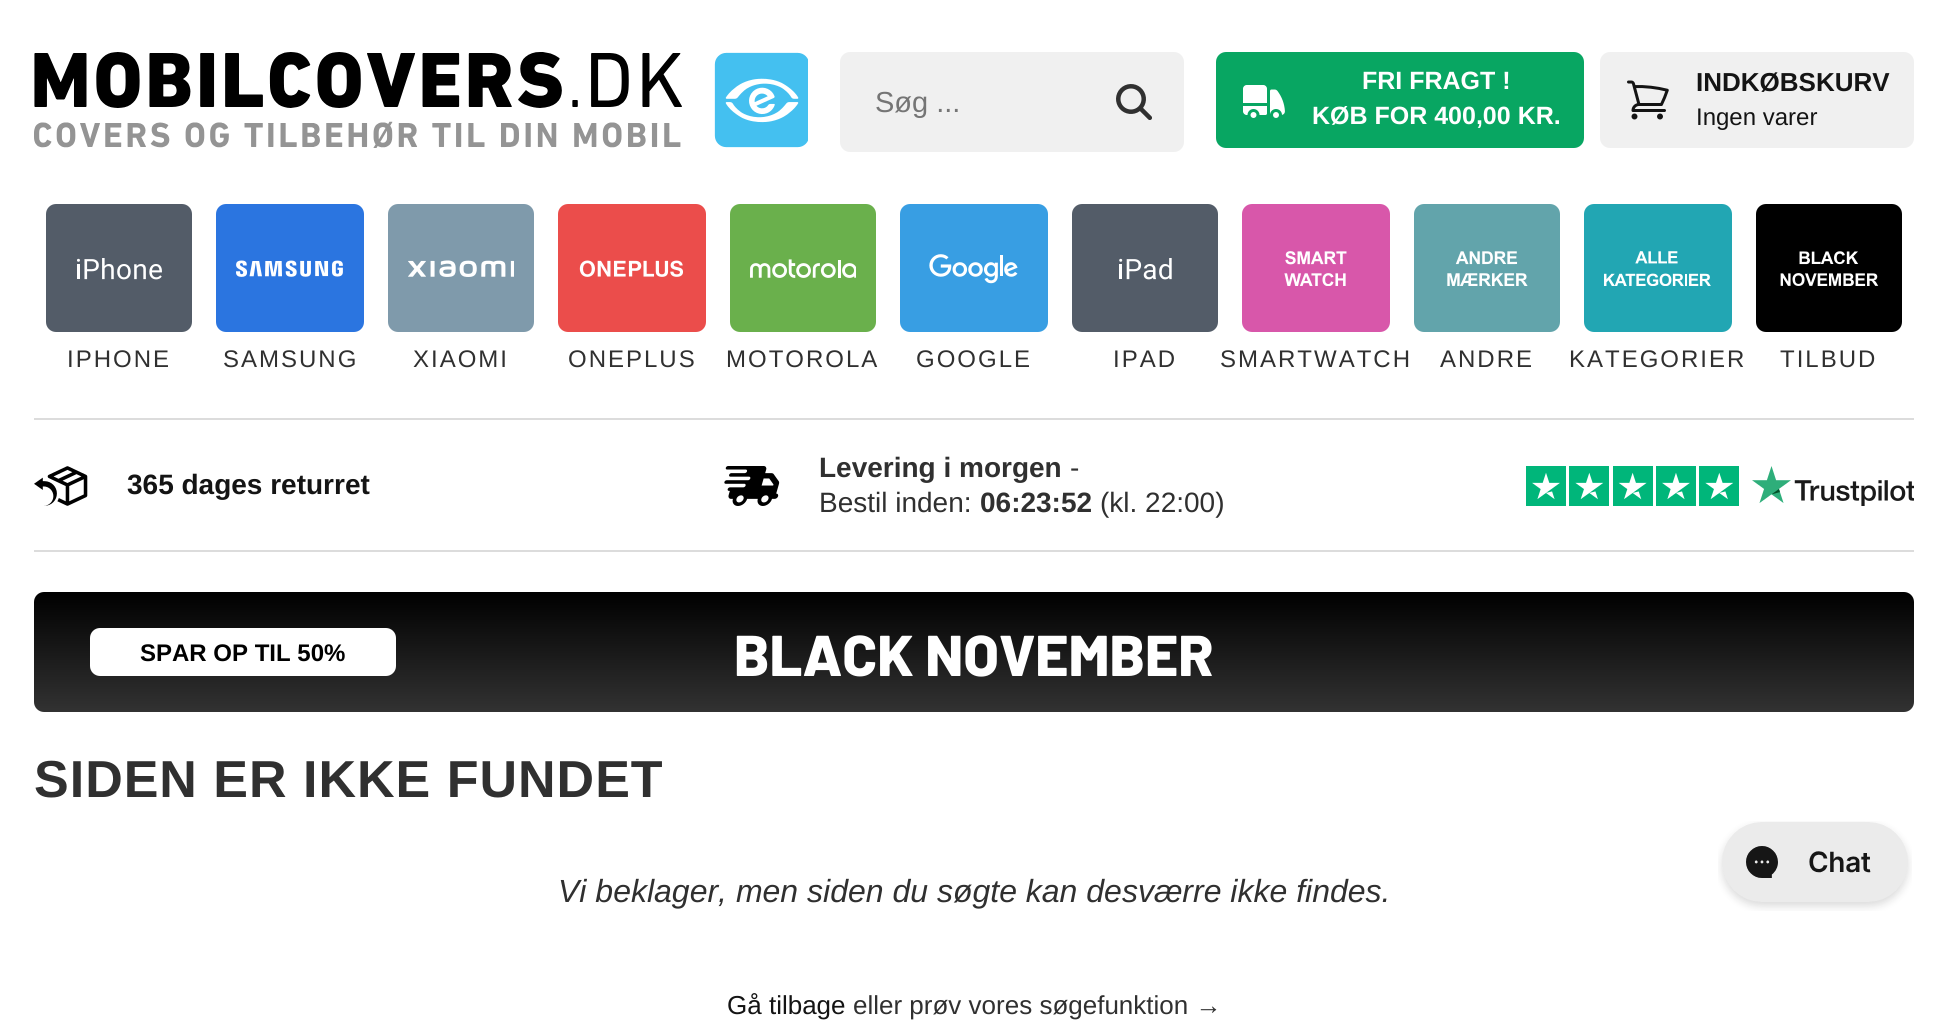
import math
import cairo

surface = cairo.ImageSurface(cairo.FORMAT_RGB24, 1947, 1035)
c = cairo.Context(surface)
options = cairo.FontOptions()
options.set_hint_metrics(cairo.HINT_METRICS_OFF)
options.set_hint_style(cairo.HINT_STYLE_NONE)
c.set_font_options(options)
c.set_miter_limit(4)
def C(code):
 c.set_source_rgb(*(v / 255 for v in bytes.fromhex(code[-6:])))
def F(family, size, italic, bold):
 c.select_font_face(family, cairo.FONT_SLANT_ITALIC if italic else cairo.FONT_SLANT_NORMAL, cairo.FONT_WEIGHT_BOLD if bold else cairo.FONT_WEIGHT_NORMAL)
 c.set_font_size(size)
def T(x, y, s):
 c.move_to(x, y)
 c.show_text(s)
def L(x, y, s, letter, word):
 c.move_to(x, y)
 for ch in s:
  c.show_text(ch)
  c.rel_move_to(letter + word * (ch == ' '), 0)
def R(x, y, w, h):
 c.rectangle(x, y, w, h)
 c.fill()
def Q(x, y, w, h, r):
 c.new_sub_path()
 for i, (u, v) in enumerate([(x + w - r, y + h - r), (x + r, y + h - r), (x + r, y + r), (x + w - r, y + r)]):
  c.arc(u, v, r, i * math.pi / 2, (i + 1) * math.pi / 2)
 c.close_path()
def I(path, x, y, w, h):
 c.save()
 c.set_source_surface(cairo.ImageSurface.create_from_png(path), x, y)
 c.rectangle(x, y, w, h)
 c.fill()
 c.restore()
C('ffffff')
c.paint()
I('1.png',34,52,648,96)
I('2.png',714,52,94,96)
C('f0f0f0')
Q(840,52,344,100,10)
c.fill()
F('Liberation Sans',29,0,0)
C('757575')
T(875,112,'Søg ...')
I('3.png',1116,84,36,36)
C('08a662')
Q(1216,52,368,96,10)
c.fill()
I('4.png',1243,85,42,33)
F('Liberation Sans',25,0,1)
C('ffffff')
T(1362,89,'FRI FRAGT !')
T(1312,124,'KØB FOR 400,00 KR.')
C('f0f0f0')
Q(1600,52,314,96,10)
c.fill()
I('5.png',1627,80,42,40)
F('Liberation Sans',26,0,1)
C('141414')
T(1696,91,'INDKØBSKURV')
F('Liberation Sans',24,0,0)
T(1696,125,'Ingen varer')
C('535c68')
Q(46,204,146,128,10)
c.fill()
I('6.png',77,258,85,22)
C('303030')
L(67,367,'IPHONE',2,0)
C('2b75e0')
Q(216,204,148,128,10)
c.fill()
I('7.png',236,260,107,17)
C('303030')
L(223,367,'SAMSUNG',2,0)
C('7f9aab')
Q(388,204,146,128,10)
c.fill()
I('8.png',408,260,106,17)
C('303030')
L(413,367,'XIAOMI',2,0)
C('eb4d4b')
Q(558,204,148,128,10)
c.fill()
I('9.png',579,260,104,17)
C('303030')
L(568,367,'ONEPLUS',2,0)
C('6ab04c')
Q(730,204,146,128,10)
c.fill()
I('10.png',750,259,106,19)
C('303030')
L(726,367,'MOTOROLA',2,0)
C('389ee3')
Q(900,204,148,128,10)
c.fill()
I('11.png',929,254,89,30)
C('303030')
L(916,367,'GOOGLE',2,0)
C('535c68')
Q(1072,204,146,128,10)
c.fill()
I('12.png',1119,258,53,22)
C('303030')
L(1113,367,'IPAD',2,0)
C('d857aa')
Q(1242,204,148,128,10)
c.fill()
I('13.png',1284,251,63,35)
C('303030')
L(1220,367,'SMARTWATCH',2,0)
C('62a4ab')
Q(1414,204,146,128,10)
c.fill()
I('14.png',1447,251,81,35)
C('303030')
L(1440,367,'ANDRE',2,0)
C('22a6b3')
Q(1584,204,148,128,10)
c.fill()
I('15.png',1604,251,107,35)
C('303030')
L(1569,367,'KATEGORIER',2,0)
C('000000')
Q(1756,204,146,128,10)
c.fill()
I('16.png',1780,251,99,35)
C('303030')
L(1780,367,'TILBUD',2,0)
C('dcdcdc')
R(34,418,1880,2)
R(34,550,1880,2)
I('17.png',34,466,54,40)
F('Liberation Sans',28,0,1)
C('141414')
T(127,494,'365 dages returret')
I('18.png',724,466,56,40)
C('303030')
T(819,477,'Levering i morgen')
F('Liberation Sans',28,0,0)
T(1070,477,'-')
T(819,512,'Bestil inden:')
F('Liberation Sans',28,0,1)
T(980,512,'06:23:52')
F('Liberation Sans',28,0,0)
T(1100,512,'(kl. 22:00)')
I('19.png',1526,466,213,40)
I('20.png',1752,466,162,40)
gradient = cairo.LinearGradient(974,712,974,592)
gradient.add_color_stop_rgba(0,0.196,0.196,0.196,1)
gradient.add_color_stop_rgba(1,0,0,0,1)
c.set_source(gradient)
Q(34,592,1880,120,10)
c.fill()
C('ffffff')
Q(90,628,306,48,10)
c.fill()
F('Liberation Sans',24,0,1)
C('000000')
T(140,661,'SPAR OP TIL 50%')
F('Barlow ExtraBold',57.5,0,0)
C('ffffff')
T(734,676,'BLACK NOVEMBER')
F('Liberation Sans',52,0,1)
C('303030')
L(34,797,'SIDEN ER IKKE FUNDET',1,0)
F('Liberation Sans',32,1,0)
T(558,902,'Vi beklager, men siden du søgte kan desværre ikke findes.')
F('Liberation Sans',26,0,0)
C('141414')
T(727,1014,'Gå tilbage')
C('303030')
T(853,1014,'eller prøv vores søgefunktion →')
I('21.png',1718,821,194,90)
surface.write_to_png('o.png')
